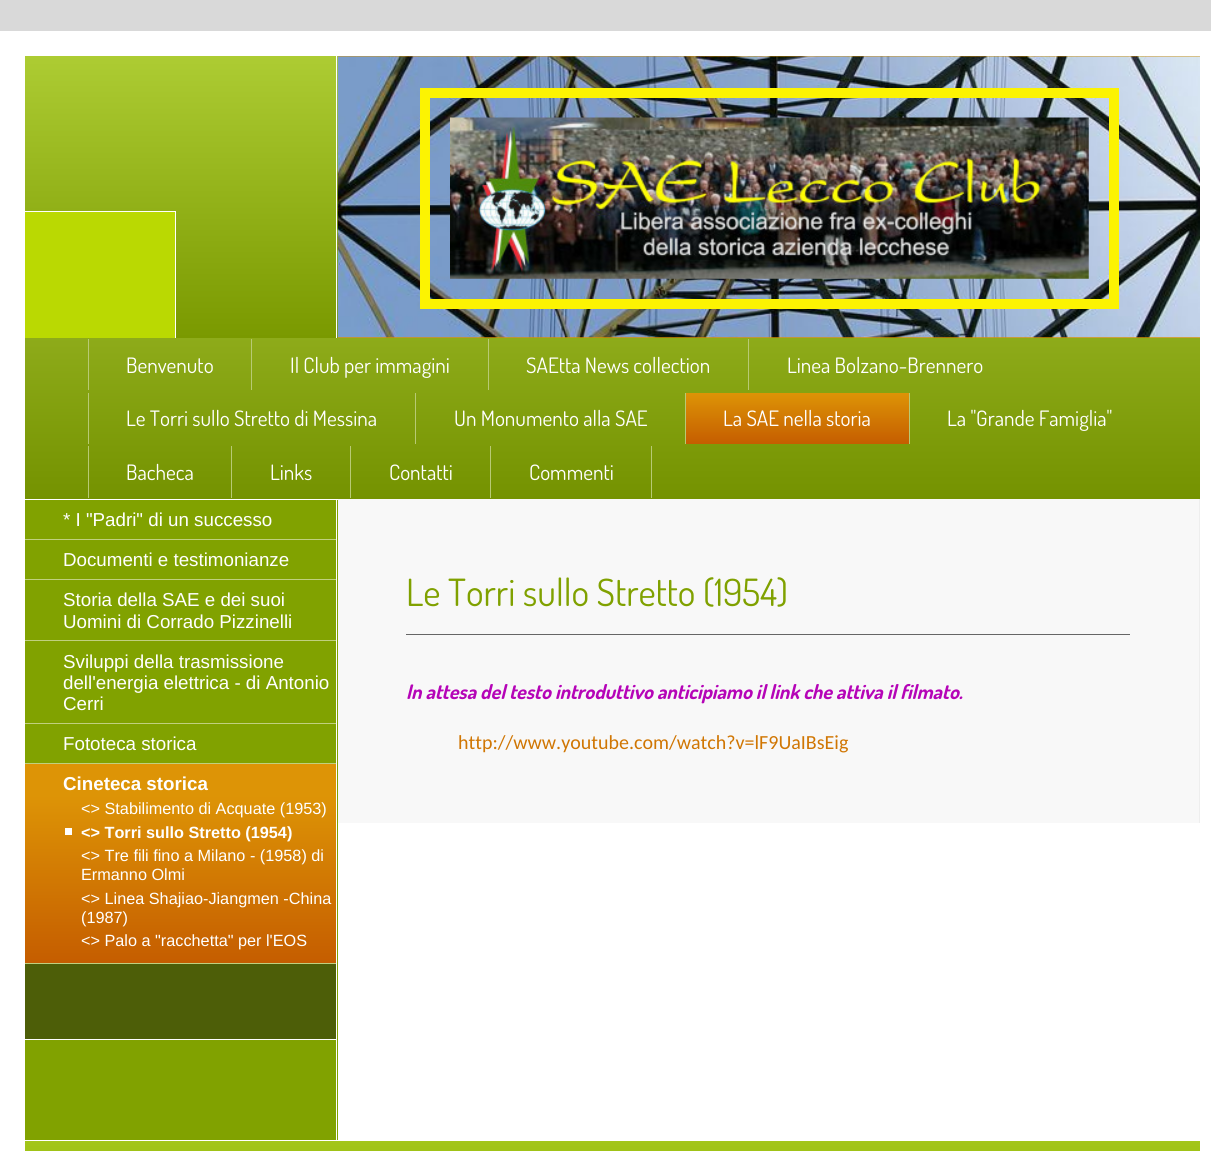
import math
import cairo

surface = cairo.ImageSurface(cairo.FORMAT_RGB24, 1211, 1151)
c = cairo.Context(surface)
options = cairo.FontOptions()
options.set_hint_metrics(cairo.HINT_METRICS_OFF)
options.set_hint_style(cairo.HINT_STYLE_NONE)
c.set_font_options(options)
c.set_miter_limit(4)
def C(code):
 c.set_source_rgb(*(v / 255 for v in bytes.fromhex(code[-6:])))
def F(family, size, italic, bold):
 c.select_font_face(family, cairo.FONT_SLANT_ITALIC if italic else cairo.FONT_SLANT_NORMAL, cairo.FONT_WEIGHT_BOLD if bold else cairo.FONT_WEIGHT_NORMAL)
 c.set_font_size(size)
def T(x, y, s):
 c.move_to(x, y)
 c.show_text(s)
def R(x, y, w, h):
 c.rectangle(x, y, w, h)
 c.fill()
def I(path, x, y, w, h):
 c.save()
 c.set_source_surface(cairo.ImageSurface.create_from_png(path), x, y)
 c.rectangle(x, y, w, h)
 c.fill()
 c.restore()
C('d9d9d9')
c.paint()
C('ffffff')
R(0,31,1211,1120)
gradient = cairo.LinearGradient(613,56,613,338)
gradient.add_color_stop_rgba(0,0.678,0.8,0.2,1)
gradient.add_color_stop_rgba(1,0.478,0.6,0,1)
c.set_source(gradient)
R(25,56,313,282)
C('bad902')
R(25,212,150,126)
C('ffffff')
R(25,211,151,1)
R(175,211,1,127)
R(336,56,1,282)
C('d49105')
R(338,56,862,282)
I('1.png',337,56,863,282)
c.rectangle(425,93,689,211)
C('fcf302')
c.set_line_width(10)
c.stroke()
I('2.png',450,117,639,162)
gradient = cairo.LinearGradient(613,337,613,499)
gradient.add_color_stop_rgba(0,0.557,0.671,0.102,1)
gradient.add_color_stop_rgba(1,0.455,0.573,0,1)
c.set_source(gradient)
R(25,338,1175,161)
C('b8ca74')
R(88,339,1,51)
F('Dosis',21.25,0,0)
C('ffffff')
T(126,373,'Benvenuto')
C('b8ca74')
R(251,339,1,51)
C('ffffff')
T(290,373,'Il Club per immagini')
C('b8ca74')
R(488,339,1,51)
C('ffffff')
T(526,373,'SAEtta News collection')
C('b8ca74')
R(748,339,1,51)
C('ffffff')
T(787,373,'Linea Bolzano-Brennero')
C('b8ca74')
R(88,393,1,51)
C('ffffff')
T(126,426,'Le Torri sullo Stretto di Messina')
C('b8ca74')
R(415,393,1,51)
C('ffffff')
T(454,426,'Un Monumento alla SAE')
C('b8ca74')
R(685,393,1,51)
gradient = cairo.LinearGradient(798,393,798,444)
gradient.add_color_stop_rgba(0,0.867,0.58,0.024,1)
gradient.add_color_stop_rgba(1,0.773,0.365,0,1)
c.set_source(gradient)
R(686,393,223,51)
C('ffffff')
T(723,426,'La SAE nella storia')
C('b8ca74')
R(909,393,1,51)
C('ffffff')
T(947,426,'La "Grande Famiglia"')
C('b8ca74')
R(88,446,1,52)
C('ffffff')
T(126,480,'Bacheca')
C('b8ca74')
R(231,446,1,52)
C('ffffff')
T(270,480,'Links')
C('b8ca74')
R(350,446,1,52)
C('ffffff')
T(389,480,'Contatti')
C('b8ca74')
R(651,446,1,52)
R(490,446,1,52)
C('ffffff')
T(529,480,'Commenti')
C('81a200')
R(25,500,313,640)
C('ffffff')
R(336,499,1,642)
C('c0d07f')
R(25,539,311,1)
F('Liberation Sans',18.75,0,0)
C('ffffff')
T(63,526,'* I "Padri" di un successo')
C('c0d07f')
R(25,579,311,1)
C('ffffff')
T(63,566,'Documenti e testimonianze')
C('c0d07f')
R(25,640,311,1)
C('ffffff')
T(63,606,'Storia della SAE e dei suoi')
T(63,628,'Uomini di Corrado Pizzinelli')
C('c0d07f')
R(25,723,311,1)
C('ffffff')
T(63,668,'Sviluppi della trasmissione')
T(63,689,'dell\'energia elettrica - di Antonio')
T(63,710,'Cerri')
C('c0d07f')
R(25,763,311,1)
C('ffffff')
T(63,750,'Fototeca storica')
C('dd9406')
R(25,764,311,32)
F('Liberation Sans',18.75,0,1)
C('ffffff')
T(63,790,'Cineteca storica')
gradient = cairo.LinearGradient(181,796,181,963)
gradient.add_color_stop_rgba(0,0.867,0.58,0.024,1)
gradient.add_color_stop_rgba(1,0.773,0.365,0,1)
c.set_source(gradient)
R(25,796,311,167)
C('c0d07f')
R(25,963,311,1)
F('Liberation Sans',16.25,0,0)
C('ffffff')
T(81,814,'<> Stabilimento di Acquate (1953)')
R(65,828,7,7)
F('Liberation Sans',16.25,0,1)
T(81,838,'<> Torri sullo Stretto (1954)')
F('Liberation Sans',16.25,0,0)
T(81,861,'<> Tre fili fino a Milano - (1958) di')
T(81,880,'Ermanno Olmi')
T(81,904,'<> Linea Shajiao-Jiangmen -China')
T(81,923,'(1987)')
T(81,946,'<> Palo a "racchetta" per l\'EOS')
C('4d5e08')
R(25,964,311,75)
C('ffffff')
R(25,1039,311,1)
C('f8f8f8')
R(338,499,861,324)
C('eeeeee')
R(1199,499,1,324)
F('Dosis',37.5,0,0)
C('80a100')
T(406,606,'Le Torri sullo Stretto (1954)')
C('666666')
R(406,634,724,1)
F('Dosis',20,1,1)
C('b504b7')
T(406,699,'In attesa del testo introduttivo anticipiamo il link che attiva il filmato.')
F('Carlito',20,0,0)
C('d07603')
T(458,749,'http://www.youtube.com/watch?v=lF9UaIBsEig')
gradient = cairo.LinearGradient(613,1141,613,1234)
gradient.add_color_stop_rgba(0,0.639,0.776,0.102,1)
gradient.add_color_stop_rgba(1,0.537,0.675,0,1)
c.set_source(gradient)
R(25,1141,1175,10)
surface.write_to_png('o.png')
